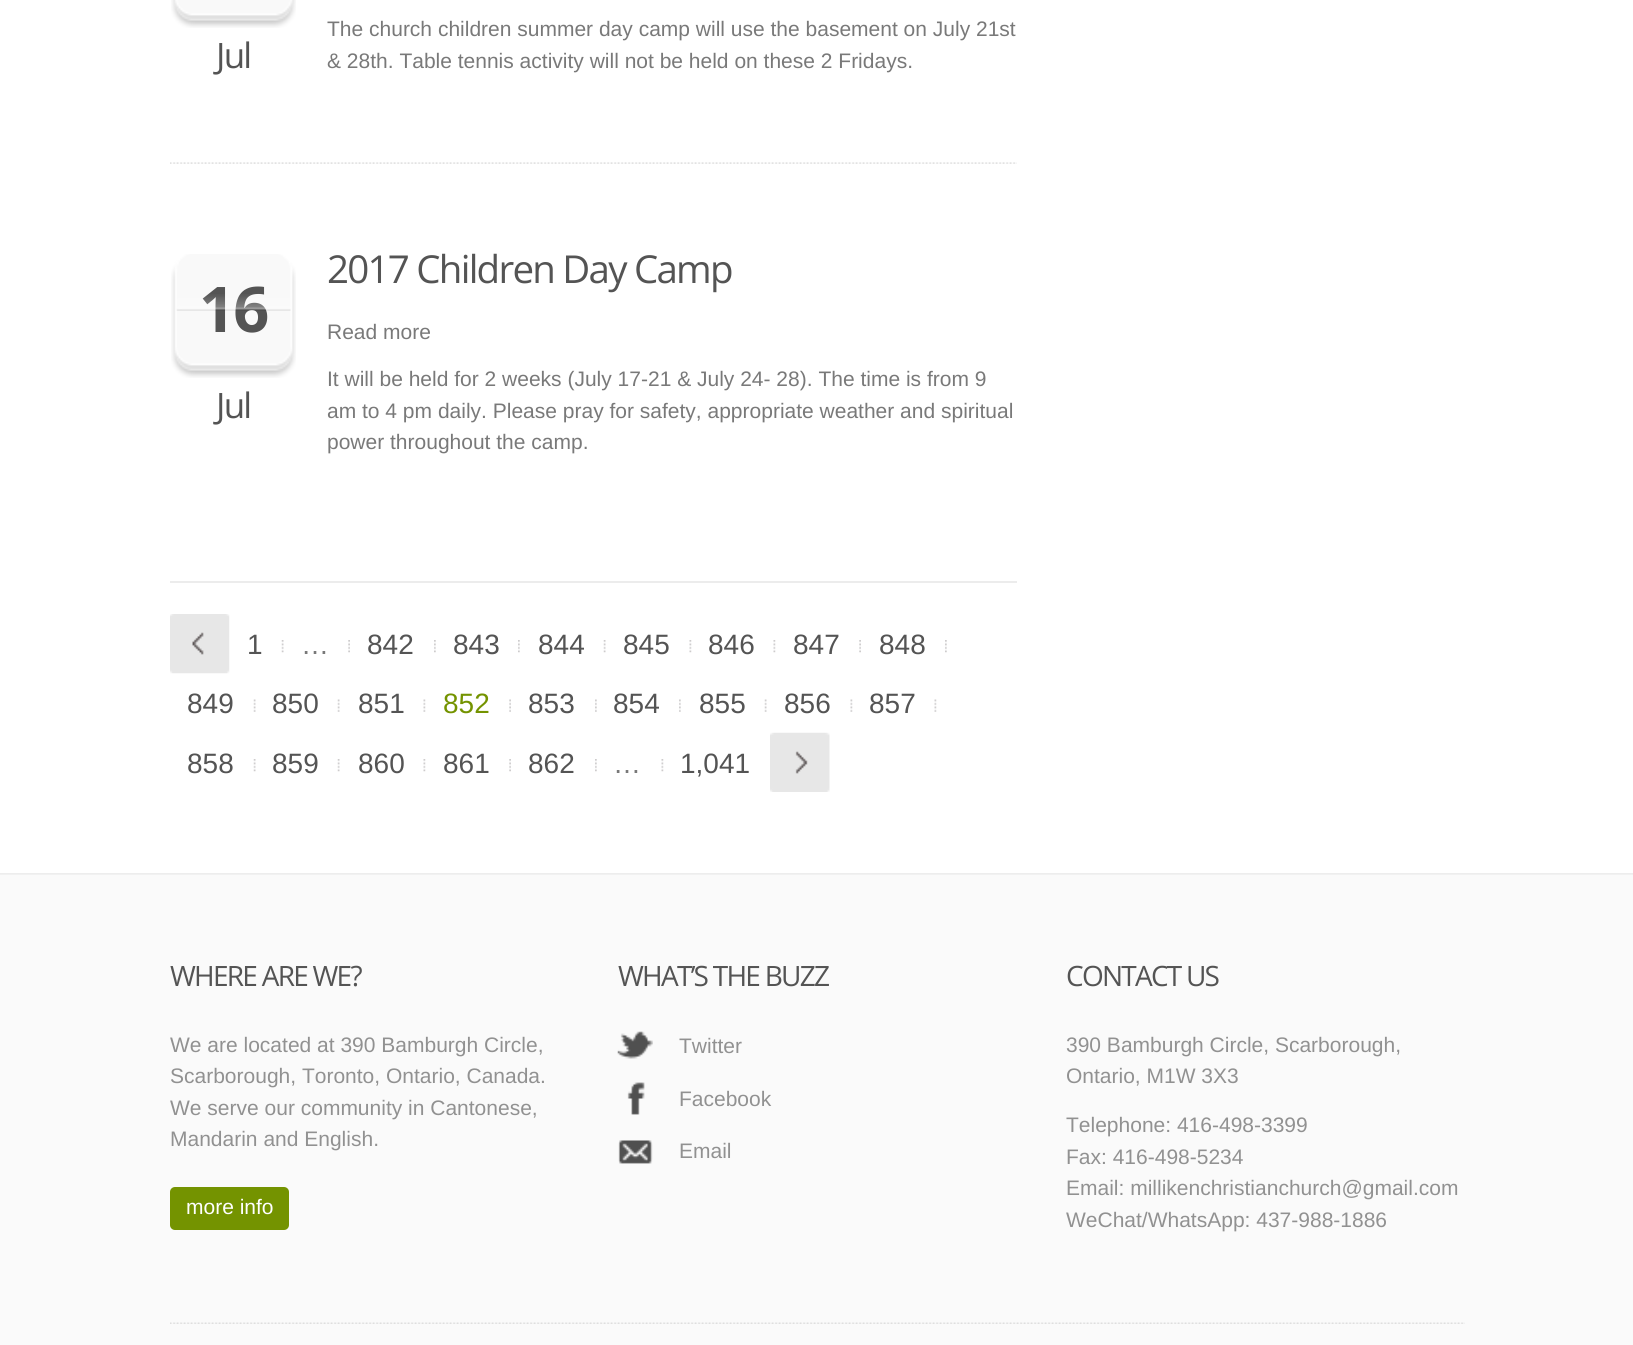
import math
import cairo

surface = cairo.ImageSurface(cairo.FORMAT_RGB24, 1633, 1345)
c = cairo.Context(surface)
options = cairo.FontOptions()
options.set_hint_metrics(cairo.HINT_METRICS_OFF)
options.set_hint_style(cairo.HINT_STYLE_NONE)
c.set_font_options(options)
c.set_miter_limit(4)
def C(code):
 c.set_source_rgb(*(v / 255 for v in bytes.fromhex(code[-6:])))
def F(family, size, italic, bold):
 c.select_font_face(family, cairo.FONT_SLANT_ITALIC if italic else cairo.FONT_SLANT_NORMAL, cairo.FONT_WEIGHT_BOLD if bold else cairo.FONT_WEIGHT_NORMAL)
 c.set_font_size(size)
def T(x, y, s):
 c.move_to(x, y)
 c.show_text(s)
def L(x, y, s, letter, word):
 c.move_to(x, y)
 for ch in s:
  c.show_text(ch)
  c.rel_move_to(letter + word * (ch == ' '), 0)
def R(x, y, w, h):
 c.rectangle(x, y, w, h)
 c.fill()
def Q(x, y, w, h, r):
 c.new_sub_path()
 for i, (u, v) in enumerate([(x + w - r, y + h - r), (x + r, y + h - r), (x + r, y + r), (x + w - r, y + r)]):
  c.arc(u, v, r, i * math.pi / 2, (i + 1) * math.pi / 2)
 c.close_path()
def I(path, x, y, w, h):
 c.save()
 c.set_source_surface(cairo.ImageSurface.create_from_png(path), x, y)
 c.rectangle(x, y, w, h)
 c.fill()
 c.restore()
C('ffffff')
c.paint()
I('1.png',170,162,847,2)
I('2.png',171,0,125,28)
F('Open Sans',35,0,0)
C('545454')
L(216,68,'Jul',-1.75,0)
F('Liberation Sans',21,0,0)
C('797979')
T(327,36,'The church children summer day camp will use the basement on July 21st')
T(327,68,'& 28th. Table tennis activity will not be held on these 2 Fridays.')
I('3.png',171,254,125,124)
F('Open Sans',63,0,1)
C('545454')
L(199,332,'16',-1.75,0)
I('4.png',176,294,115,17)
F('Open Sans',35,0,0)
L(216,418,'Jul',-1.75,0)
F('Open Sans',38.5,0,0)
L(327,283,'2017 Children Day Camp',-1.75,0)
F('Liberation Sans',21,0,0)
C('797979')
T(327,339,'Read more')
T(327,386,'It will be held for 2 weeks (July 17-21 & July 24- 28). The time is from 9')
T(327,418,'am to 4 pm daily. Please pray for safety, appropriate weather and spiritual')
T(327,449,'power throughout the camp.')
C('ececec')
R(170,581,847,2)
I('5.png',170,614,60,60)
I('6.png',281,640,3,13)
F('Liberation Sans',28,0,0)
C('545454')
T(247,654,'1')
I('7.png',348,640,2,13)
C('797979')
T(301,654,'…')
I('8.png',434,640,2,13)
C('545454')
T(367,654,'842')
I('8.png',518,640,2,13)
T(453,654,'843')
I('6.png',603,640,3,13)
T(538,654,'844')
I('9.png',689,640,3,13)
T(623,654,'845')
I('9.png',773,640,3,13)
T(708,654,'846')
I('7.png',859,640,2,13)
T(793,654,'847')
I('8.png',945,640,2,13)
T(879,654,'848')
I('10.png',253,699,3,13)
T(187,713,'849')
I('10.png',337,699,3,13)
T(272,713,'850')
I('11.png',423,699,3,13)
T(358,713,'851')
I('12.png',509,699,2,13)
C('749300')
T(443,713,'852')
I('13.png',595,699,2,13)
C('545454')
T(528,713,'853')
I('13.png',679,699,2,13)
T(613,713,'854')
I('10.png',764,699,3,13)
T(699,713,'855')
I('11.png',850,699,3,13)
T(784,713,'856')
I('11.png',934,699,3,13)
T(869,713,'857')
I('6.png',253,759,3,13)
T(187,773,'858')
I('6.png',337,759,3,13)
T(272,773,'859')
I('9.png',423,759,3,13)
T(358,773,'860')
I('7.png',509,759,2,13)
T(443,773,'861')
I('8.png',595,759,2,13)
T(528,773,'862')
I('9.png',661,759,3,13)
C('797979')
T(613,773,'…')
C('545454')
T(680,773,'1,041')
I('14.png',770,732,60,60)
C('fafafa')
R(0,873,1633,472)
I('15.png',0,873,1633,2)
F('Open Sans',28,0,0)
C('545454')
L(170,986,'WHERE ARE WE?',-1.75,0)
F('Liberation Sans',21,0,0)
C('919191')
T(170,1052,'We are located at 390 Bamburgh Circle,')
T(170,1083,'Scarborough, Toronto, Ontario, Canada.')
T(170,1115,'We serve our community in Cantonese,')
T(170,1146,'Mandarin and English.')
C('749300')
Q(170,1187,119,43,5)
c.fill()
C('ffffff')
T(186,1214,'more info')
F('Open Sans',28,0,0)
C('545454')
L(618,986,'WHAT’S THE BUZZ',-1.75,0)
I('16.png',617,1031,36,28)
F('Liberation Sans',21,0,0)
C('919191')
T(679,1053,'Twitter')
I('17.png',627,1082,18,33)
T(679,1106,'Facebook')
I('18.png',618,1140,35,24)
T(679,1158,'Email')
F('Open Sans',28,0,0)
C('545454')
L(1066,986,'CONTACT US',-1.75,0)
F('Liberation Sans',21,0,0)
C('919191')
T(1066,1052,'390 Bamburgh Circle, Scarborough,')
T(1066,1083,'Ontario, M1W 3X3')
T(1066,1132,'Telephone: 416-498-3399')
T(1066,1164,'Fax: 416-498-5234')
T(1066,1195,'Email: millikenchristianchurch@gmail.com')
T(1066,1227,'WeChat/WhatsApp: 437-988-1886')
I('19.png',170,1322,1295,2)
surface.write_to_png('o.png')
